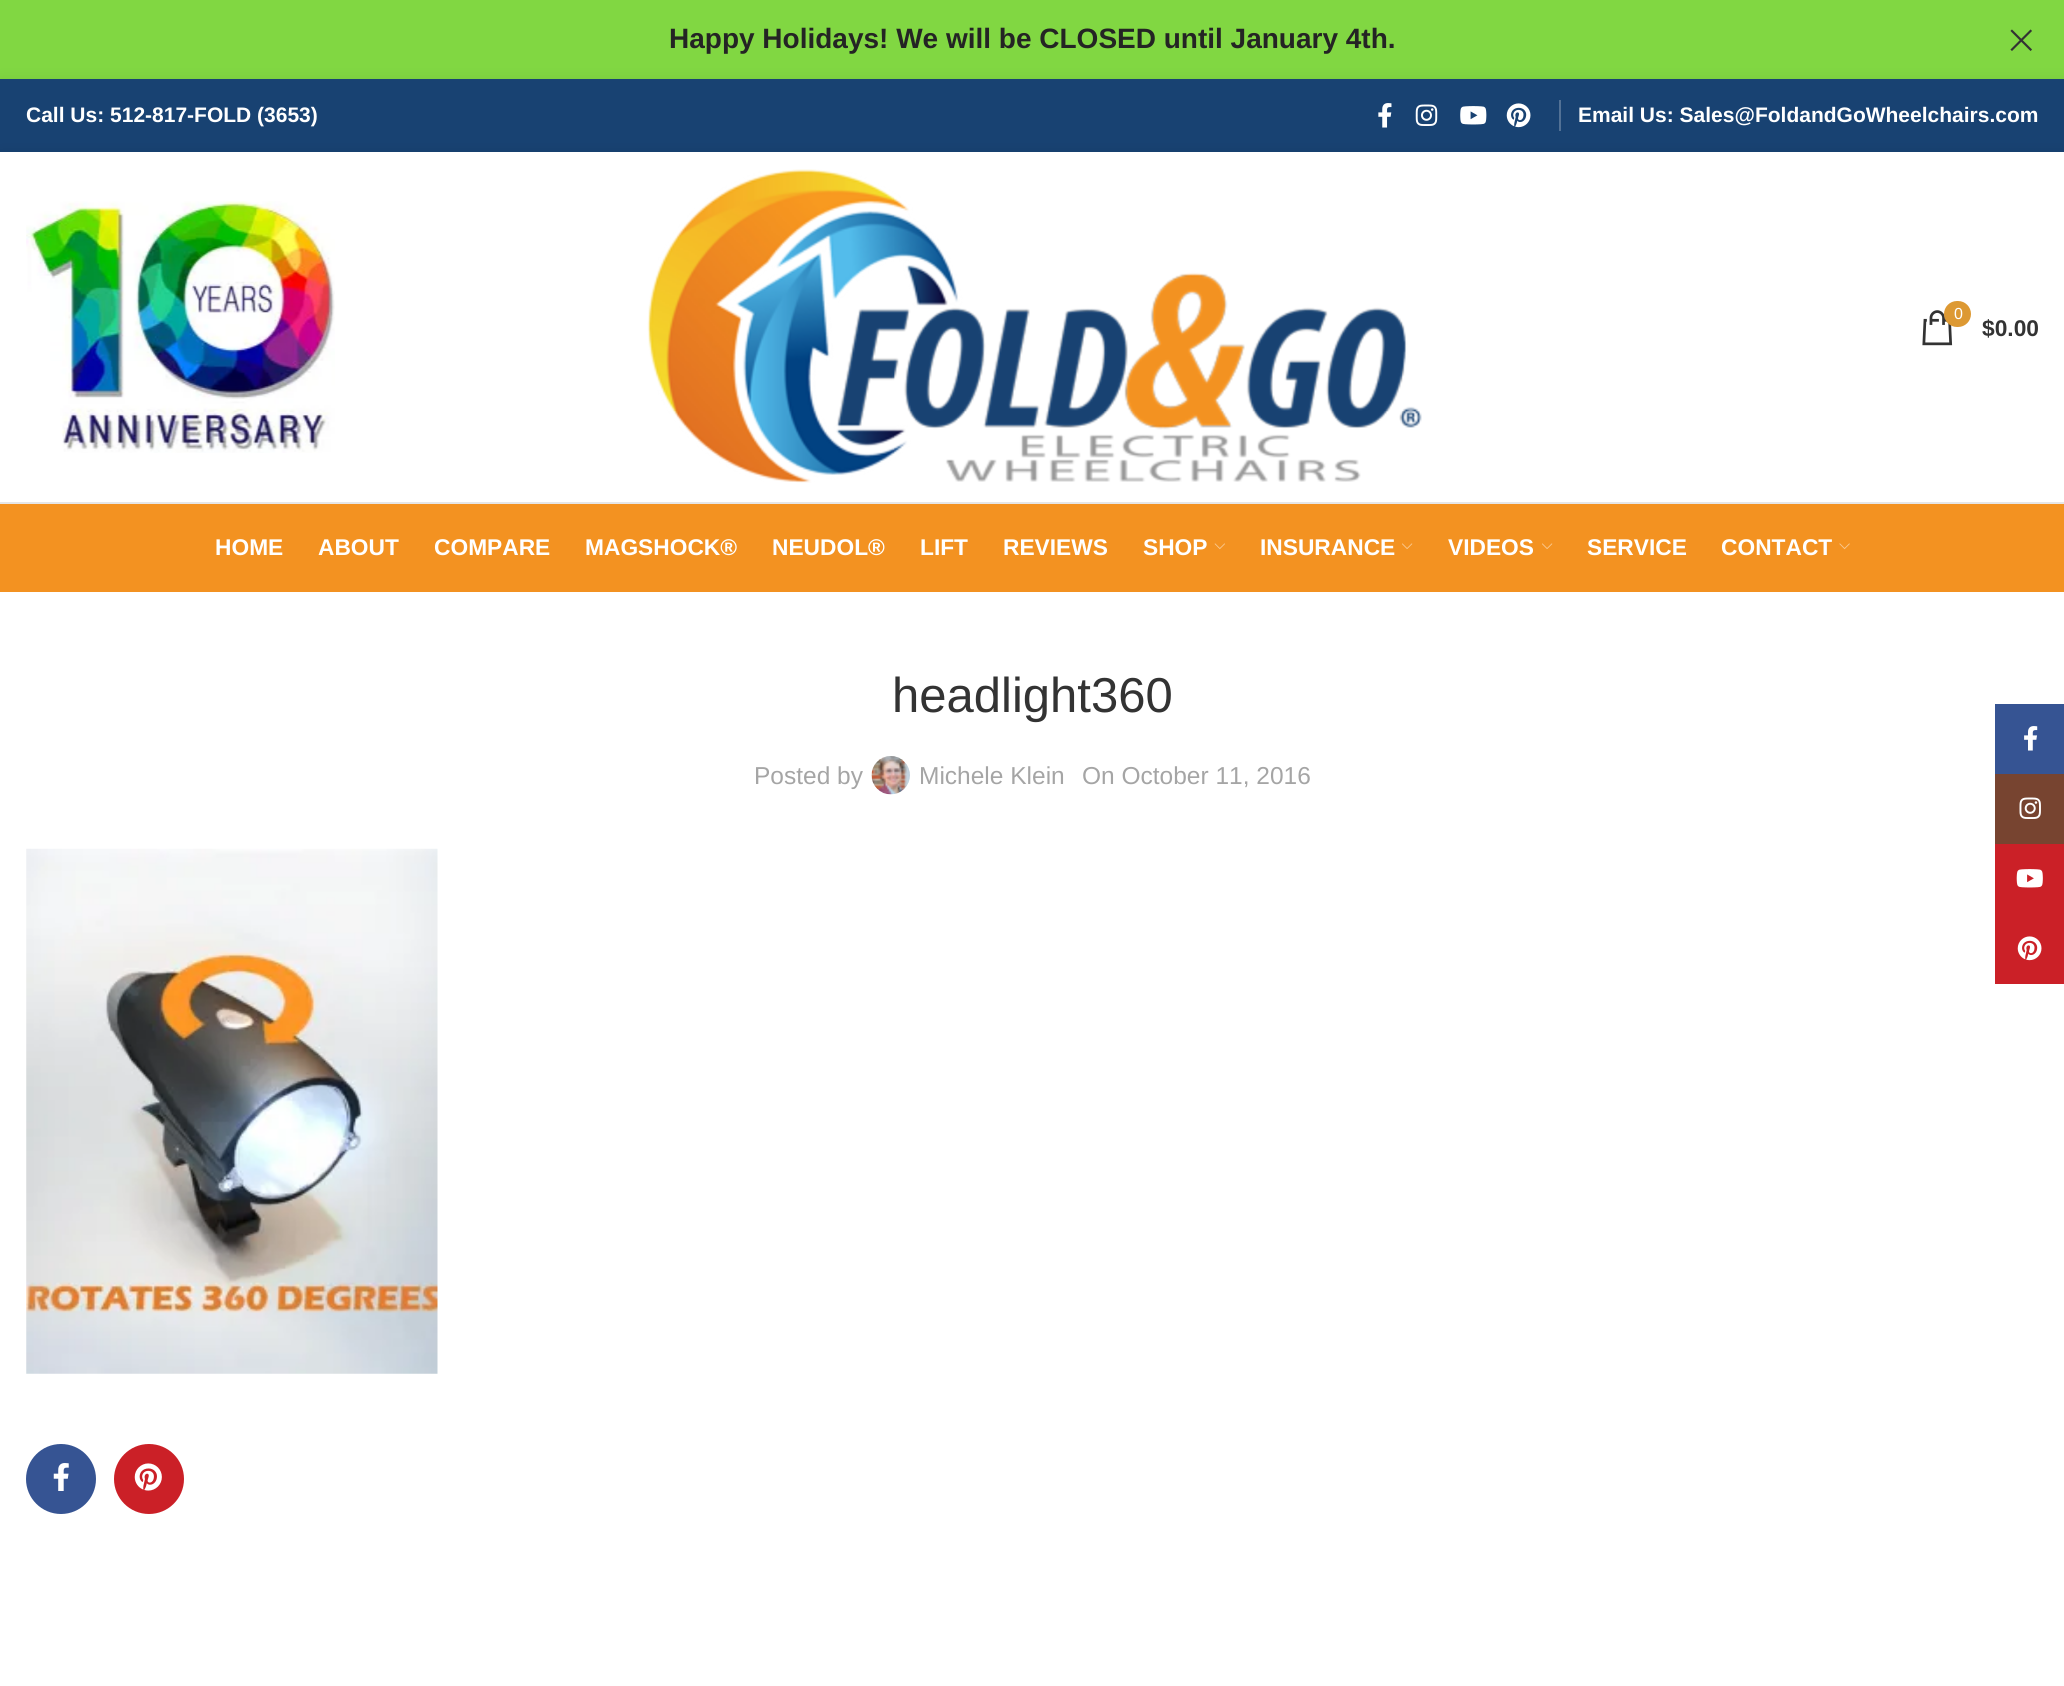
import math
import cairo

surface = cairo.ImageSurface(cairo.FORMAT_RGB24, 2064, 1686)
c = cairo.Context(surface)
options = cairo.FontOptions()
options.set_hint_metrics(cairo.HINT_METRICS_OFF)
options.set_hint_style(cairo.HINT_STYLE_NONE)
c.set_font_options(options)
c.set_miter_limit(4)
def C(code):
 c.set_source_rgb(*(v / 255 for v in bytes.fromhex(code[-6:])))
def F(family, size, italic, bold):
 c.select_font_face(family, cairo.FONT_SLANT_ITALIC if italic else cairo.FONT_SLANT_NORMAL, cairo.FONT_WEIGHT_BOLD if bold else cairo.FONT_WEIGHT_NORMAL)
 c.set_font_size(size)
def T(x, y, s):
 c.move_to(x, y)
 c.show_text(s)
def R(x, y, w, h):
 c.rectangle(x, y, w, h)
 c.fill()
def Q(x, y, w, h, r):
 c.new_sub_path()
 for i, (u, v) in enumerate([(x + w - r, y + h - r), (x + r, y + h - r), (x + r, y + r), (x + w - r, y + r)]):
  c.arc(u, v, r, i * math.pi / 2, (i + 1) * math.pi / 2)
 c.close_path()
def S(x, y, w, h, r, blur, alpha):
 c.push_group_with_content(cairo.CONTENT_ALPHA)
 c.set_operator(cairo.OPERATOR_SOURCE)
 for i in range(15, -16, -2):
  e = blur * i / 6
  if min(w, h) + 2 * e > 0:
   c.set_source_rgba(0, 0, 0, alpha * math.erfc((i - 1) / 8.5) / 2)
   Q(x - e, y - e, w + 2 * e, h + 2 * e, max(0, min(r + e + blur * .6, min(w, h) / 2 + e)))
   c.fill()
 c.mask(c.pop_group())
def I(path, x, y, w, h):
 c.save()
 c.set_source_surface(cairo.ImageSurface.create_from_png(path), x, y)
 c.rectangle(x, y, w, h)
 c.fill()
 c.restore()
C('ffffff')
c.paint()
C('81d742')
R(0,0,2064,79)
F('Liberation Sans',28,0,1)
C('242424')
T(669,48,'Happy Holidays! We will be CLOSED until January 4th.')
I('1.png',2010,29,22,22)
C('000000')
S(0,81,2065,73,0,7,.1)
C('184272')
R(0,79,2064,73)
F('Liberation Sans',21,0,1)
C('ffffff')
T(26,122,'Call Us: 512-817-FOLD (3653)')
I('2.png',1378,103,14,25)
I('3.png',1415,104,23,22)
I('4.png',1460,106,27,19)
I('5.png',1506,103,25,25)
C('527195')
R(1559,100,2,31)
C('ffffff')
T(1578,122,'Email Us: Sales@FoldandGoWheelchairs.com')
C('000000')
S(0,154,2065,352,0,7,.1)
C('ffffff')
R(0,152,2064,350)
C('e6e6e6')
R(0,502,2064,2)
I('6.png',26,201,309,252)
I('7.png',647,169,775,314)
I('8.png',1922,310,31,36)
C('dd9933')
Q(1944,301,27,26,13)
c.fill()
F('Liberation Sans',16,0,0)
C('ffffff')
T(1954,319,'0')
F('Liberation Sans',22.75,0,1)
C('333333')
T(1982,336,'$0.00')
C('f39221')
R(0,504,2064,88)
C('ffffff')
T(215,555,'HOME')
T(318,555,'ABOUT')
T(434,555,'COMPARE')
T(585,555,'MAGSHOCK®')
T(772,555,'NEUDOL®')
T(920,555,'LIFT')
T(1003,555,'REVIEWS')
T(1143,555,'SHOP')
I('9.png',1214,543,11,7)
T(1260,555,'INSURANCE')
I('10.png',1402,543,11,6)
T(1448,555,'VIDEOS')
I('10.png',1542,543,11,6)
T(1587,555,'SERVICE')
T(1721,555,'CONTACT')
I('11.png',1839,543,11,7)
F('Liberation Sans',49,0,0)
C('333333')
T(892,712,'headlight360')
F('Liberation Sans',24.5,0,0)
C('a5a5a5')
T(754,784,'Posted by')
I('12.png',871,756,39,39)
T(919,784,'Michele Klein')
T(1082,784,'On October 11, 2016')
I('13.png',26,848,412,526)
C('365493')
c.arc(61,1479,35,0,2 * math.pi)
c.fill()
I('14.png',53,1463,16,28)
C('cb2027')
c.arc(149,1479,35,0,2 * math.pi)
c.fill()
I('15.png',134,1463,28,28)
C('365493')
R(1995,704,69,70)
I('16.png',2024,726,14,25)
C('774430')
R(1995,774,69,70)
I('17.png',2019,797,22,22)
C('cb2027')
R(1995,844,69,140)
I('18.png',2016,869,27,19)
I('19.png',2017,936,25,25)
surface.write_to_png('o.png')
